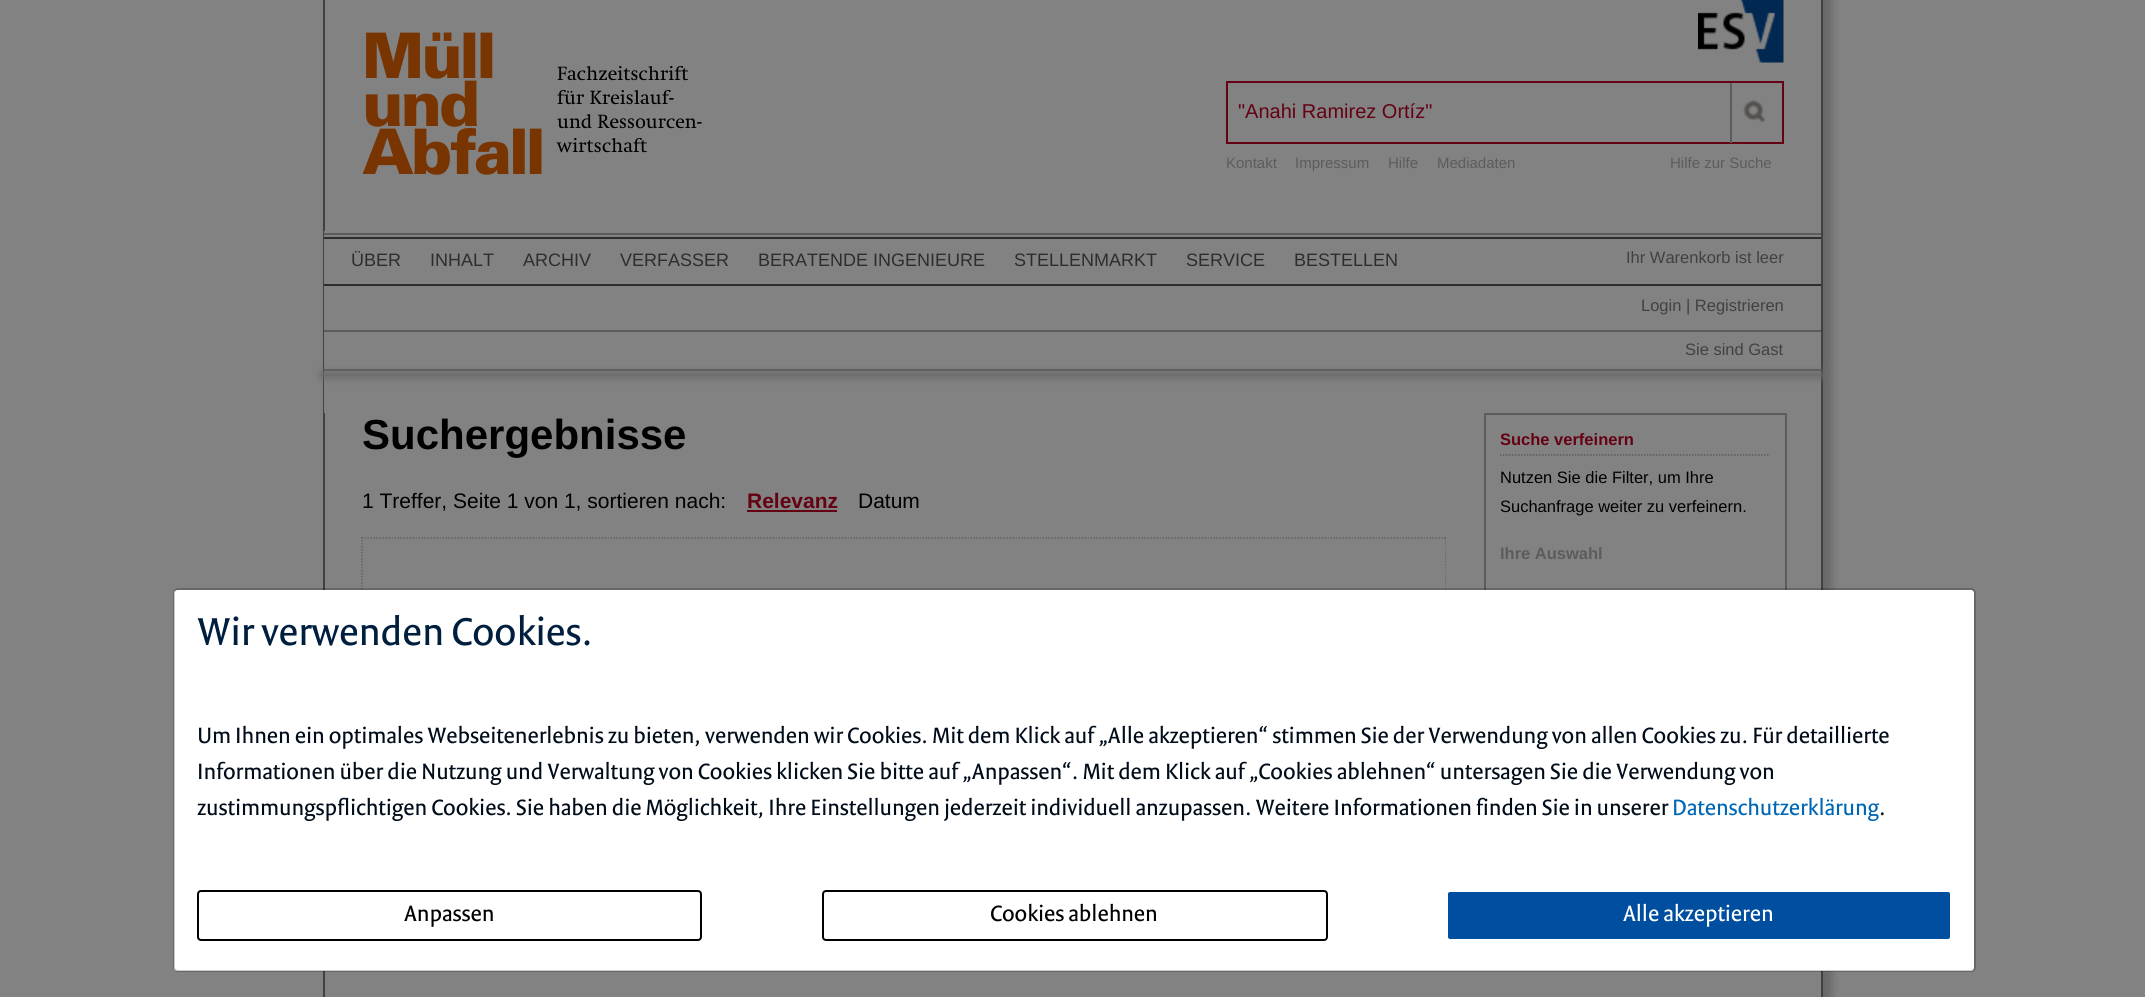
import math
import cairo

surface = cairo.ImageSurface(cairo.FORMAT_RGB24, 2145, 997)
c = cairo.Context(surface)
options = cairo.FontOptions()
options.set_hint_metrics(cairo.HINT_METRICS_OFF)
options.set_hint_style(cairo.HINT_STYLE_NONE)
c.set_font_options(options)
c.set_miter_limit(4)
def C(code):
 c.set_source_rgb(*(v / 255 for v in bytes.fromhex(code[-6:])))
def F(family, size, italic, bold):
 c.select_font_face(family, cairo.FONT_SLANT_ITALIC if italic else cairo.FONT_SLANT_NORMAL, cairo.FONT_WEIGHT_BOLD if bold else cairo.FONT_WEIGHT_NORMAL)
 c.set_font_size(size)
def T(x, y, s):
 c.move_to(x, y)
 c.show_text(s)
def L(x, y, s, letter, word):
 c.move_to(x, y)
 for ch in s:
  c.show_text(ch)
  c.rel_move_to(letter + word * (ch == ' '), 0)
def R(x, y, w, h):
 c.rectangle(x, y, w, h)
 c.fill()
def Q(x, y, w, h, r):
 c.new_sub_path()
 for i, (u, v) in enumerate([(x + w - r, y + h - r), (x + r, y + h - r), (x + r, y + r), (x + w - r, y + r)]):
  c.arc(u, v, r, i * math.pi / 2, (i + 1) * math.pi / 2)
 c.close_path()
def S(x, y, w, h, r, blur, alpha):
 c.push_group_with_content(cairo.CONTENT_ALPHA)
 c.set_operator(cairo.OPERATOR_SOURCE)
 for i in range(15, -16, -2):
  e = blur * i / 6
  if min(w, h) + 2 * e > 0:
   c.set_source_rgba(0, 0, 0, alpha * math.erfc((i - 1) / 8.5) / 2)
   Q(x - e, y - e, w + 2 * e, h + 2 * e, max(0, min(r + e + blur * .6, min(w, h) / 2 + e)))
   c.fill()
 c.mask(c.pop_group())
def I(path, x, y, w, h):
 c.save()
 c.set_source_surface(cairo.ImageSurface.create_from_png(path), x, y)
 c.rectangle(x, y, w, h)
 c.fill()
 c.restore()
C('828282')
c.paint()
c.save()
c.set_fill_rule(cairo.FILL_RULE_EVEN_ODD)
c.new_path()
c.move_to(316,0)
c.line_to(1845,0)
c.line_to(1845,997)
c.line_to(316,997)
c.close_path()
c.move_to(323,-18)
c.line_to(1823,-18)
c.line_to(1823,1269)
c.line_to(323,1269)
c.close_path()
c.clip()
C('686868')
S(329,-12,1503,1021,0,4,1)
c.restore()
c.rectangle(324,-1,1498,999)
C('414141')
c.stroke()
I('1.png',1698,0,86,63)
F('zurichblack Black',63,0,0)
C('783401')
L(362,78,'Müll',-3,0)
L(362,126,'und',-3,0)
L(362,174,'Abfall',-3,0)
F('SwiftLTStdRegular',19.5,0,0)
C('000000')
T(557,80,'Fachzeitschrift')
T(557,104,'für Kreislauf-')
T(557,128,'und Ressourcen-')
T(557,152,'wirtschaft')
c.rectangle(1227,82,556,61)
C('640113')
c.stroke()
C('5c5c5c')
R(1730,83,2,60)
F('Liberation Sans',20,0,0)
C('640113')
T(1238,118,'"Anahi Ramirez Ortíz"')
I('2.png',1743,100,23,23)
F('Liberation Sans',15,0,0)
C('5c5c5c')
T(1226,168,'Kontakt')
T(1295,168,'Impressum')
T(1388,168,'Hilfe')
T(1437,168,'Mediadaten')
T(1670,168,'Hilfe zur Suche')
C('828282')
R(324,231,1,182)
C('5c5c5c')
R(324,233,1497,2)
C('2d2d2e')
R(324,237,1497,2)
R(324,284,1497,2)
F('Liberation Sans',18,0,0)
T(351,266,'ÜBER')
T(430,266,'INHALT')
T(523,266,'ARCHIV')
T(620,266,'VERFASSER')
T(758,266,'BERATENDE INGENIEURE')
T(1014,266,'STELLENMARKT')
T(1186,266,'SERVICE')
T(1294,266,'BESTELLEN')
C('5c5c5c')
R(324,330,1497,2)
R(324,369,1497,2)
F('Liberation Sans',16.5,0,0)
C('414141')
T(1626,263,'Ihr Warenkorb ist leer')
T(1641,311,'Login | Registrieren')
T(1685,355,'Sie sind Gast')
C('686868')
S(321,372,1503,6,0,4,1)
F('Liberation Sans',42,0,1)
C('000000')
T(362,449,'Suchergebnisse')
F('Liberation Sans',21,0,0)
T(362,508,'1 Treffer, Seite 1 von 1, sortieren nach:')
F('Liberation Sans',21,0,1)
C('640113')
T(747,508,'Relevanz')
R(747,510,90,2)
F('Liberation Sans',21,0,0)
C('000000')
T(858,508,'Datum')
c.new_path()
c.move_to(361.5,538)
c.line_to(1446,538)
C('626262')
c.set_line_width(1.5)
c.set_dash([1.5,1.5])
c.stroke()
c.new_path()
c.move_to(1445,537)
c.line_to(1445,796.5)
c.stroke()
c.new_path()
c.move_to(362,537)
c.line_to(362,796.5)
c.stroke()
C('828282')
R(1444,540,1,50)
c.rectangle(1485,414,301,394)
C('5c5c5c')
c.set_line_width(2)
c.set_dash([])
c.stroke()
c.new_path()
c.move_to(1500,455)
c.line_to(1770,455)
c.set_line_width(1.5)
c.set_dash([1.5,1.5])
c.stroke()
F('Liberation Sans',16.5,0,1)
C('640113')
T(1500,445,'Suche verfeinern')
F('Liberation Sans',16.5,0,0)
C('000000')
T(1500,483,'Nutzen Sie die Filter, um Ihre')
T(1500,512,'Suchanfrage weiter zu verfeinern.')
F('Liberation Sans',16.5,0,1)
C('5c5c5c')
T(1500,559,'Ihre Auswahl')
C('ffffff')
Q(174,590,1800,381,3)
c.fill()
Q(174,589,1801,382,4)
c.set_source_rgba(0,0,0,0.2)
c.set_line_width(2)
c.set_dash([])
c.stroke()
F('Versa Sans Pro',42,0,0)
C('001e3e')
T(197,645,'Wir verwenden Cookies.')
F('Versa Sans Pro',24,0,0)
C('000c19')
T(197,743,'Um Ihnen ein optimales Webseitenerlebnis zu bieten, verwenden wir Cookies. Mit dem Klick auf „Alle akzeptieren“ stimmen Sie der Verwendung von allen Cookies zu. Für detaillierte')
T(197,779,'Informationen über die Nutzung und Verwaltung von Cookies klicken Sie bitte auf „Anpassen“. Mit dem Klick auf „Cookies ablehnen“ untersagen Sie die Verwendung von')
T(197,815,'zustimmungspflichtigen Cookies. Sie haben die Möglichkeit, Ihre Einstellungen jederzeit individuell anzupassen. Weitere Informationen finden Sie in unserer')
C('0067b5')
T(1672,815,'Datenschutzerklärung')
C('000c19')
T(1879,815,'.')
Q(198,891,503,49,3)
C('000000')
c.stroke()
T(404,921,'Anpassen')
Q(823,891,504,49,3)
c.stroke()
T(990,921,'Cookies ablehnen')
C('004e9f')
Q(1447,891,504,49,3)
c.fill_preserve()
C('ffffff')
c.stroke()
T(1623,921,'Alle akzeptieren')
surface.write_to_png('o.png')
